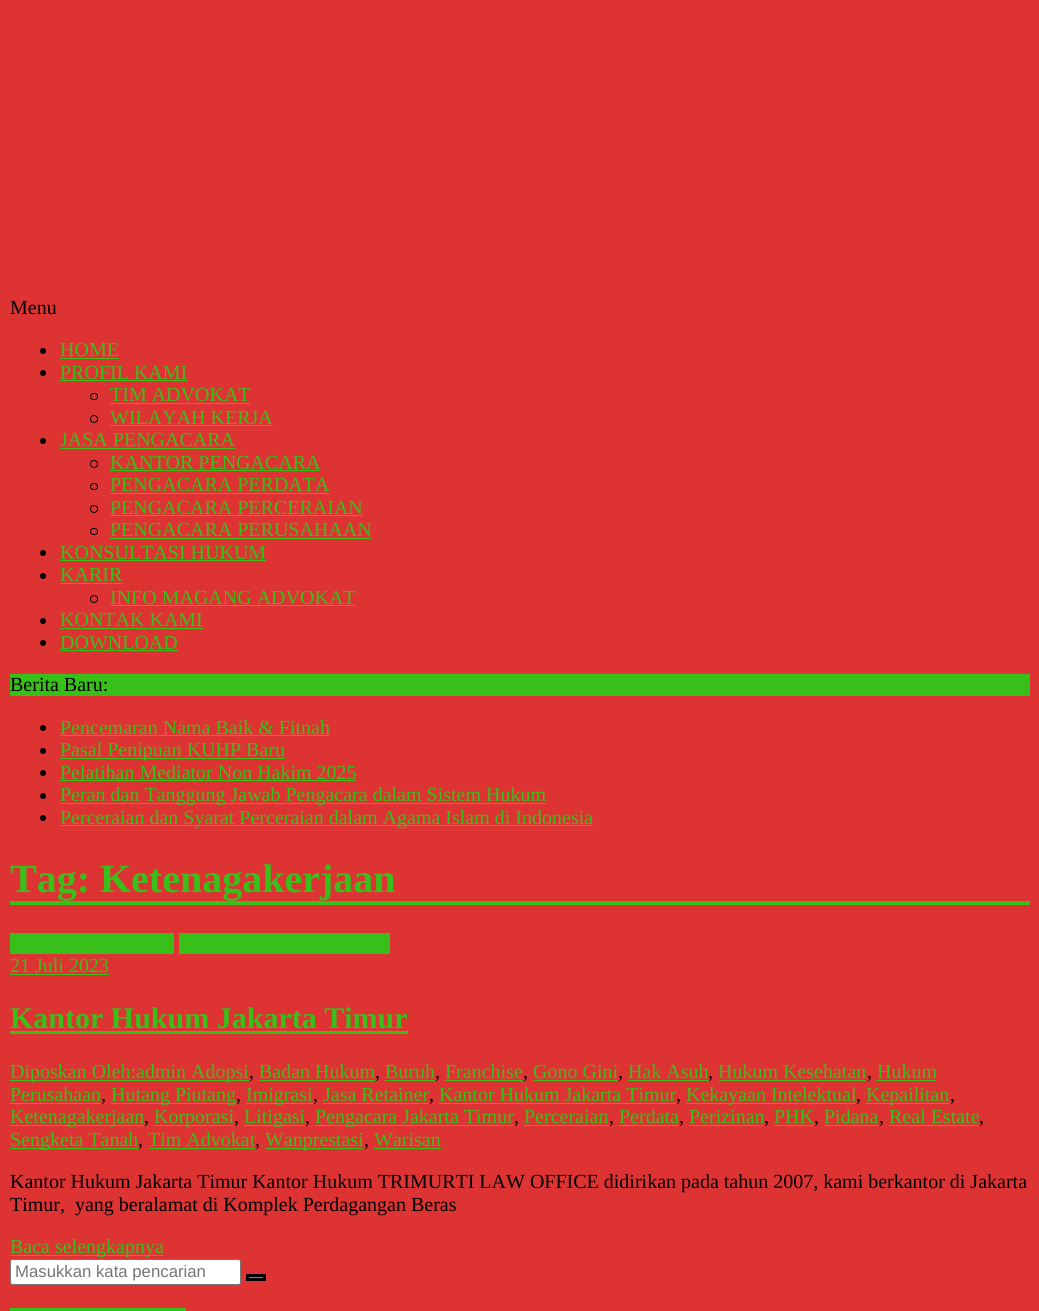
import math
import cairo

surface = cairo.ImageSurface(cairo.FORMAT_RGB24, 1039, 1311)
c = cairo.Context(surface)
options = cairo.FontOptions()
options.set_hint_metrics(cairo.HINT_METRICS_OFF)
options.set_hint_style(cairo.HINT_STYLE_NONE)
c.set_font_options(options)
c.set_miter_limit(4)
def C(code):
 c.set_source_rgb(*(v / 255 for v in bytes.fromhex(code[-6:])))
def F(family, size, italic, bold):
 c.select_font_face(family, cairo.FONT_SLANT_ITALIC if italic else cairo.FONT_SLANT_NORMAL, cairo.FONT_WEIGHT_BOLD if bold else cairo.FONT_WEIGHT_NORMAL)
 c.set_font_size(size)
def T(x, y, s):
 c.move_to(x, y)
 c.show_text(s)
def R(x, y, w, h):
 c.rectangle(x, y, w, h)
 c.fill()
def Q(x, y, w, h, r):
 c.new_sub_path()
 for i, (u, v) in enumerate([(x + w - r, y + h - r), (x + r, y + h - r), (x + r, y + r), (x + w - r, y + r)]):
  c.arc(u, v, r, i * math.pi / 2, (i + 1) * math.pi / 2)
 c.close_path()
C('dd3333')
c.paint()
F('Liberation Serif',20,0,0)
C('000000')
T(10,314,'Menu')
c.new_path()
c.arc(43,351,3,0,2 * math.pi)
c.fill()
C('38bf1a')
T(60,356,'HOME')
R(60,358,59,1)
C('000000')
c.new_path()
c.arc(43,373,3,0,2 * math.pi)
c.fill()
C('38bf1a')
T(60,379,'PROFIL KAMI')
R(60,380,128,1)
Q(90.5,393.5,7,6,3)
C('000000')
c.set_line_width(1)
c.stroke()
C('38bf1a')
T(110,401,'TIM ADVOKAT')
R(110,403,140,1)
c.new_path()
c.arc(94,419,3.5,0,2 * math.pi)
C('000000')
c.stroke()
C('38bf1a')
T(110,424,'WILAYAH KERJA')
R(110,425,163,1)
C('000000')
c.new_path()
c.arc(43,441,3,0,2 * math.pi)
c.fill()
C('38bf1a')
T(60,446,'JASA PENGACARA')
R(60,448,175,1)
c.new_path()
c.arc(94,464,3.5,0,2 * math.pi)
C('000000')
c.stroke()
C('38bf1a')
T(110,469,'KANTOR PENGACARA')
R(110,470,210,1)
Q(90.5,483.5,7,6,3)
C('000000')
c.stroke()
C('38bf1a')
T(110,491,'PENGACARA PERDATA')
R(110,493,220,1)
c.new_path()
c.arc(94,509,3.5,0,2 * math.pi)
C('000000')
c.stroke()
C('38bf1a')
T(110,514,'PENGACARA PERCERAIAN')
R(110,515,253,1)
Q(90.5,528.5,7,6,3)
C('000000')
c.stroke()
C('38bf1a')
T(110,536,'PENGACARA PERUSAHAAN')
R(110,538,261,1)
C('000000')
c.new_path()
c.arc(43,553,3,0,2 * math.pi)
c.fill()
C('38bf1a')
T(60,559,'KONSULTASI HUKUM')
R(60,560,206,1)
C('000000')
c.new_path()
c.arc(43,576,3,0,2 * math.pi)
c.fill()
C('38bf1a')
T(60,581,'KARIR')
R(60,583,63,1)
c.new_path()
c.arc(94,599,3.5,0,2 * math.pi)
C('000000')
c.stroke()
C('38bf1a')
T(110,604,'INFO MAGANG ADVOKAT')
R(110,605,245,1)
C('000000')
c.new_path()
c.arc(43,621,3,0,2 * math.pi)
c.fill()
C('38bf1a')
T(60,626,'KONTAK KAMI')
R(60,628,143,1)
C('000000')
c.new_path()
c.arc(43,643,3,0,2 * math.pi)
c.fill()
C('38bf1a')
T(60,649,'DOWNLOAD')
R(60,650,118,1)
R(10,674,1020,22)
C('000000')
T(10,691,'Berita Baru:')
c.new_path()
c.arc(43,728,3,0,2 * math.pi)
c.fill()
C('38bf1a')
T(60,734,'Pencemaran Nama Baik & Fitnah')
R(60,735,270,1)
C('000000')
c.new_path()
c.arc(43,751,3,0,2 * math.pi)
c.fill()
C('38bf1a')
R(60,758,225,1)
T(60,756,'Pasal Penipuan KUHP Baru')
C('000000')
c.new_path()
c.arc(43,773,3,0,2 * math.pi)
c.fill()
C('38bf1a')
T(60,779,'Pelatihan Mediator Non Hakim 2025')
R(60,780,296,1)
C('000000')
c.new_path()
c.arc(43,796,3,0,2 * math.pi)
c.fill()
C('38bf1a')
R(60,803,486,1)
T(60,801,'Peran dan Tanggung Jawab Pengacara dalam Sistem Hukum')
C('000000')
c.new_path()
c.arc(43,818,3,0,2 * math.pi)
c.fill()
C('38bf1a')
R(60,825,533,1)
T(60,824,'Perceraian dan Syarat Perceraian dalam Agama Islam di Indonesia')
R(10,901,1020,4)
F('Liberation Serif',40,0,1)
T(10,892,'Tag: Ketenagakerjaan')
R(10,933,164,21)
R(179,933,211,21)
F('Liberation Serif',20,0,0)
T(10,972,'21 Juli 2023')
R(10,974,99,1)
F('Liberation Serif',30,0,1)
T(10,1028,'Kantor Hukum Jakarta Timur')
R(10,1031,398,3)
R(10,1080,239,1)
F('Liberation Serif',20,0,0)
T(10,1078,'Diposkan Oleh:admin Adopsi')
C('000000')
T(249,1078,',')
C('38bf1a')
T(259,1078,'Badan Hukum')
C('000000')
T(375,1078,',')
C('38bf1a')
R(259,1080,116,1)
T(385,1078,'Buruh')
C('000000')
T(435,1078,',')
C('38bf1a')
R(385,1080,50,1)
T(445,1078,'Franchise')
C('000000')
T(523,1078,',')
C('38bf1a')
R(445,1080,78,1)
T(533,1078,'Gono Gini')
C('000000')
T(618,1078,',')
C('38bf1a')
R(533,1080,85,1)
T(628,1078,'Hak Asuh')
C('000000')
T(708,1078,',')
C('38bf1a')
R(628,1080,81,1)
T(718,1078,'Hukum Kesehatan')
C('000000')
T(867,1078,',')
C('38bf1a')
R(719,1080,147,1)
R(876,1080,60,1)
T(877,1078,'Hukum')
T(10,1101,'Perusahaan')
C('000000')
T(101,1101,',')
C('38bf1a')
R(10,1103,91,1)
R(111,1103,125,1)
T(111,1101,'Hutang Piutang')
C('000000')
T(236,1101,',')
C('38bf1a')
R(246,1103,67,1)
T(246,1101,'Imigrasi')
C('000000')
T(313,1101,',')
C('38bf1a')
T(323,1101,'Jasa Retainer')
C('000000')
T(429,1101,',')
C('38bf1a')
R(323,1103,106,1)
T(439,1101,'Kantor Hukum Jakarta Timur')
C('000000')
T(676,1101,',')
C('38bf1a')
R(439,1103,237,1)
R(686,1103,170,1)
T(686,1101,'Kekayaan Intelektual')
C('000000')
T(856,1101,',')
C('38bf1a')
R(866,1103,84,1)
T(866,1101,'Kepailitan')
C('000000')
T(950,1101,',')
C('38bf1a')
R(10,1125,134,1)
T(10,1123,'Ketenagakerjaan')
C('000000')
T(144,1123,',')
C('38bf1a')
R(154,1125,80,1)
T(154,1123,'Korporasi')
C('000000')
T(234,1123,',')
C('38bf1a')
R(244,1125,61,1)
T(244,1123,'Litigasi')
C('000000')
T(305,1123,',')
C('38bf1a')
R(315,1125,199,1)
T(315,1123,'Pengacara Jakarta Timur')
C('000000')
T(514,1123,',')
C('38bf1a')
T(524,1123,'Perceraian')
C('000000')
T(609,1123,',')
C('38bf1a')
R(524,1125,85,1)
T(619,1123,'Perdata')
C('000000')
T(679,1123,',')
C('38bf1a')
R(619,1125,60,1)
T(689,1123,'Perizinan')
C('000000')
T(764,1123,',')
C('38bf1a')
R(689,1125,75,1)
T(774,1123,'PHK')
C('000000')
T(814,1123,',')
C('38bf1a')
R(774,1125,40,1)
T(824,1123,'Pidana')
C('000000')
T(879,1123,',')
C('38bf1a')
R(824,1125,55,1)
T(889,1123,'Real Estate')
C('000000')
T(979,1123,',')
C('38bf1a')
R(889,1125,90,1)
R(10,1148,129,1)
T(10,1146,'Sengketa Tanah')
C('000000')
T(138,1146,',')
C('38bf1a')
T(148,1146,'Tim Advokat')
C('000000')
T(255,1146,',')
C('38bf1a')
R(149,1148,106,1)
R(265,1148,99,1)
T(265,1146,'Wanprestasi')
C('000000')
T(364,1146,',')
C('38bf1a')
R(374,1148,67,1)
T(374,1146,'Warisan')
C('000000')
T(10,1188,'Kantor Hukum Jakarta Timur Kantor Hukum TRIMURTI LAW OFFICE didirikan pada tahun 2007, kami berkantor di Jakarta')
T(10,1211,'Timur,  yang beralamat di Komplek Perdagangan Beras')
C('38bf1a')
R(10,1255,154,1)
T(10,1253,'Baca selengkapnya')
C('ffffff')
Q(10.5,1259.5,230,25,2)
c.fill_preserve()
C('767676')
c.stroke()
F('Liberation Sans',16.75,0,0)
C('757575')
T(15,1277,'Masukkan kata pencarian')
C('38bf1a')
c.rectangle(247.5,1275.5,17,4)
c.fill_preserve()
C('000000')
c.set_line_width(3)
c.stroke()
C('38bf1a')
R(10,1308,176,3)
surface.write_to_png('o.png')
